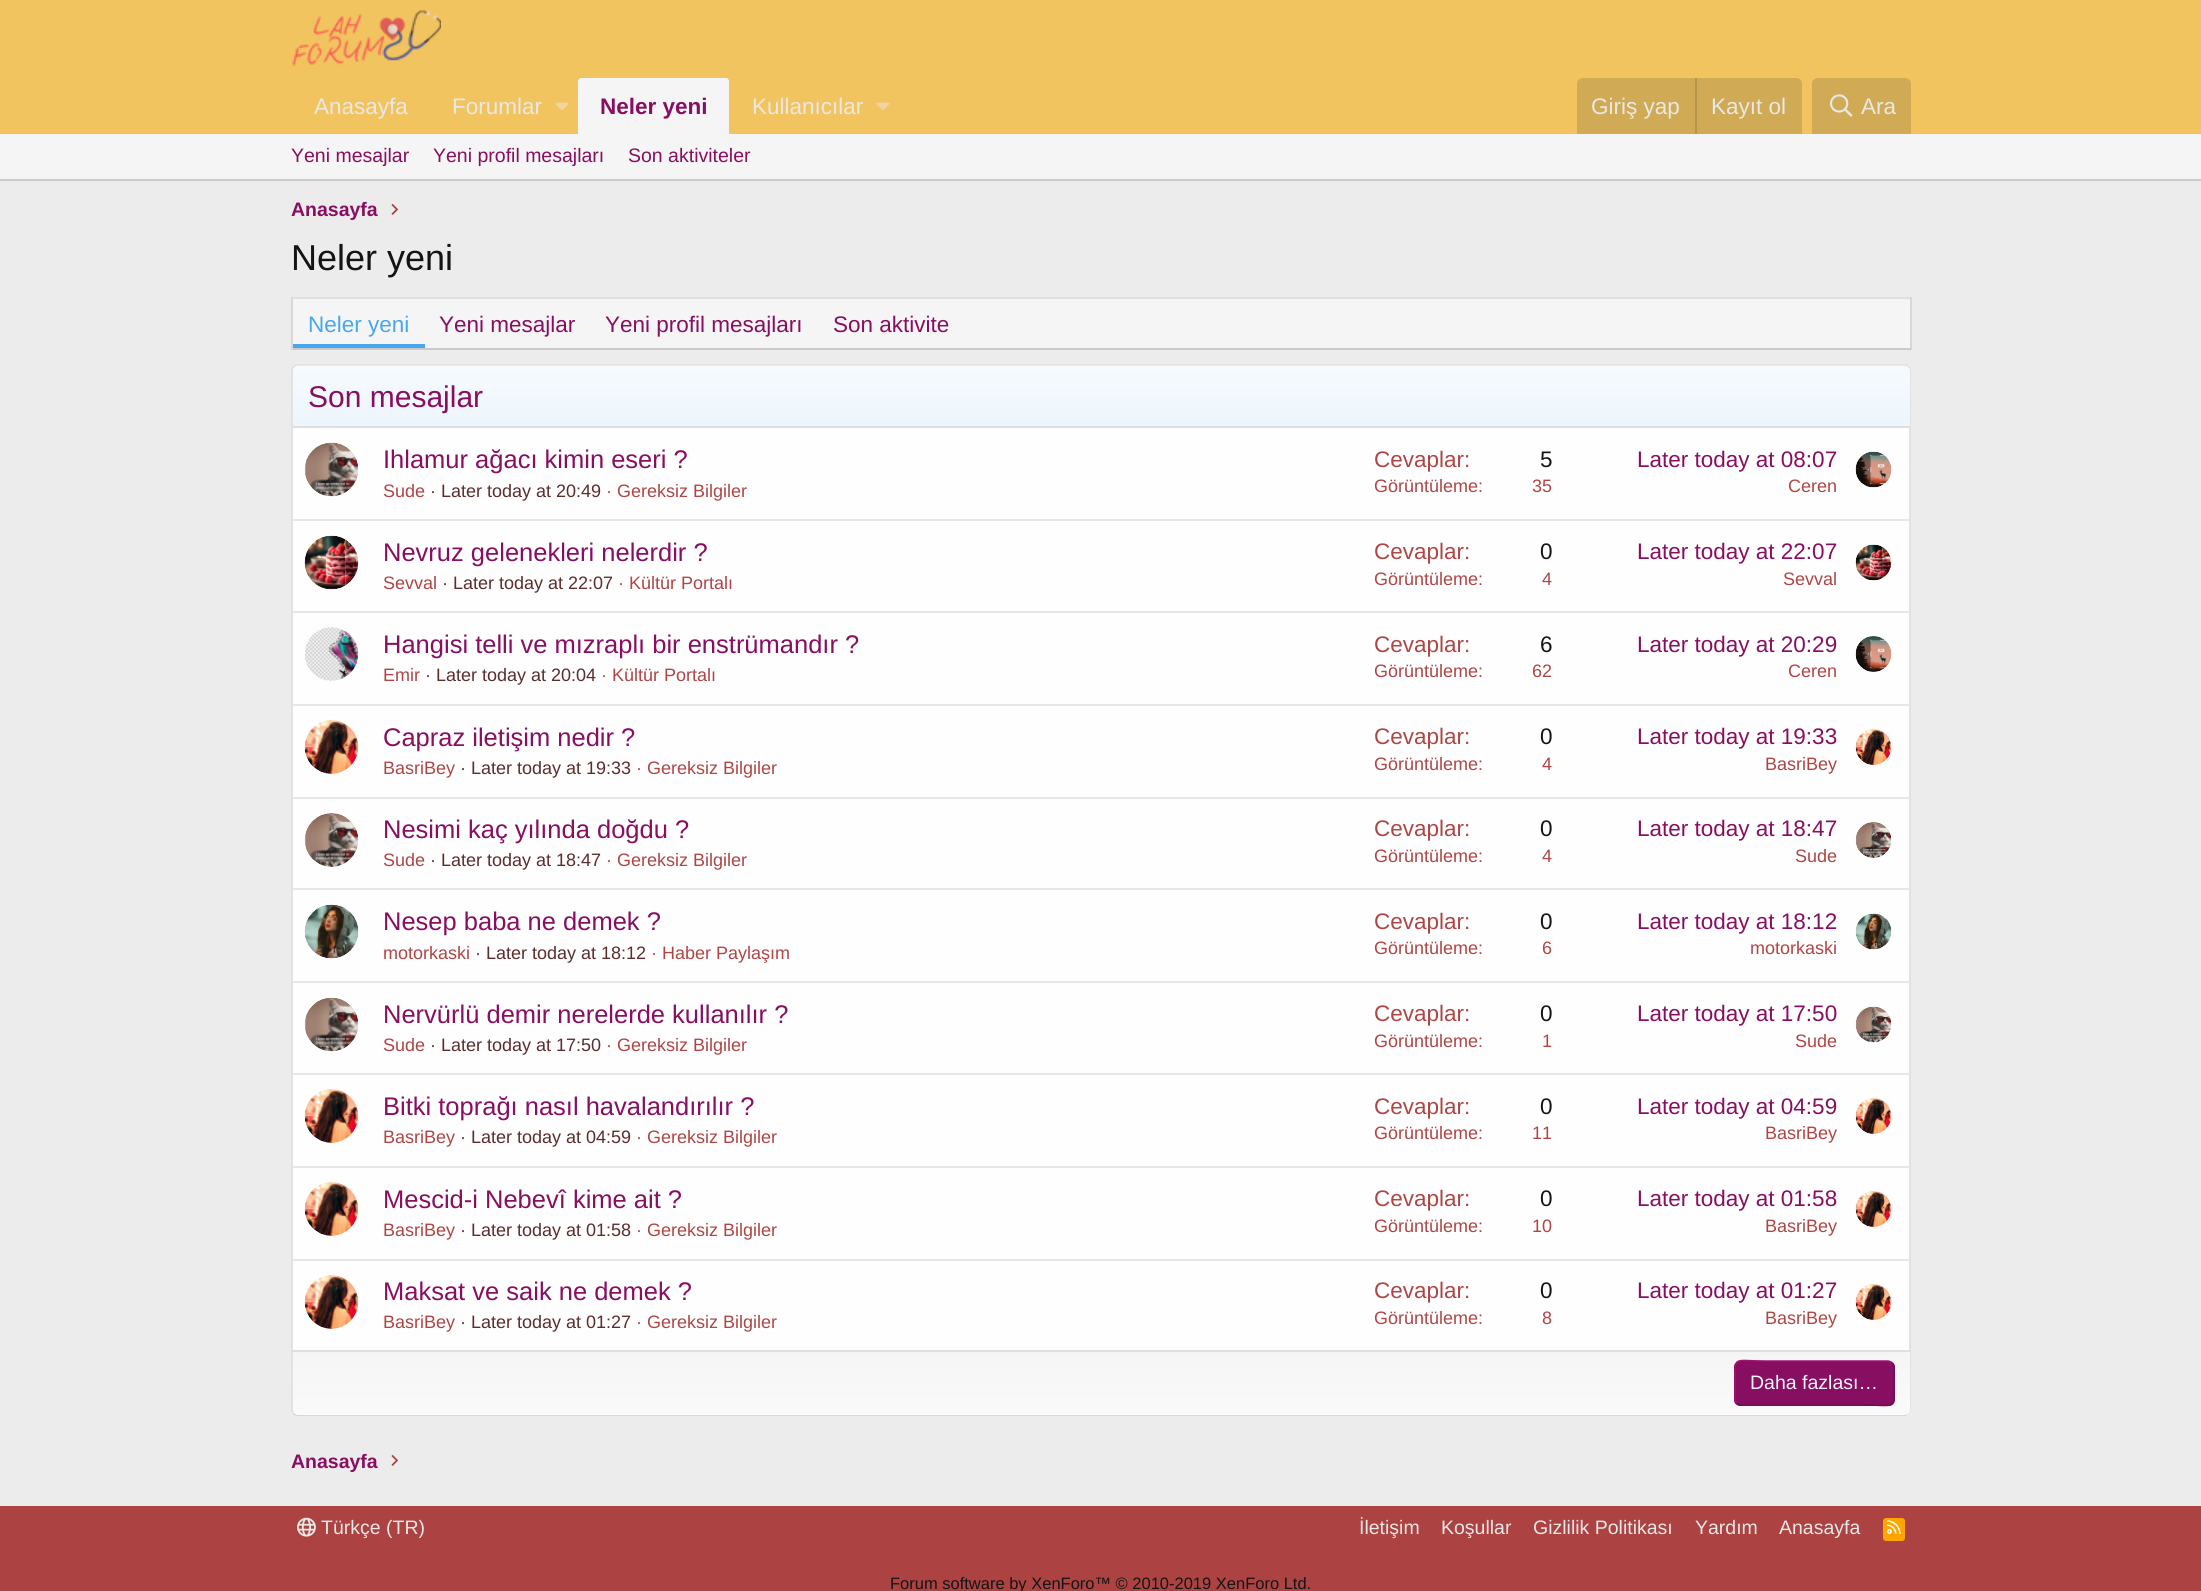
import math
import cairo

surface = cairo.ImageSurface(cairo.FORMAT_RGB24, 2201, 1591)
c = cairo.Context(surface)
options = cairo.FontOptions()
options.set_hint_metrics(cairo.HINT_METRICS_OFF)
options.set_hint_style(cairo.HINT_STYLE_NONE)
c.set_font_options(options)
c.set_miter_limit(4)
def C(code):
 c.set_source_rgb(*(v / 255 for v in bytes.fromhex(code[-6:])))
def F(family, size, italic, bold):
 c.select_font_face(family, cairo.FONT_SLANT_ITALIC if italic else cairo.FONT_SLANT_NORMAL, cairo.FONT_WEIGHT_BOLD if bold else cairo.FONT_WEIGHT_NORMAL)
 c.set_font_size(size)
def T(x, y, s):
 c.move_to(x, y)
 c.show_text(s)
def R(x, y, w, h):
 c.rectangle(x, y, w, h)
 c.fill()
def Q(x, y, w, h, r):
 c.new_sub_path()
 for i, (u, v) in enumerate([(x + w - r, y + h - r), (x + r, y + h - r), (x + r, y + r), (x + w - r, y + r)]):
  c.arc(u, v, r, i * math.pi / 2, (i + 1) * math.pi / 2)
 c.close_path()
def I(path, x, y, w, h):
 c.save()
 c.set_source_surface(cairo.ImageSurface.create_from_png(path), x, y)
 c.rectangle(x, y, w, h)
 c.fill()
 c.restore()
C('ececec')
c.paint()
C('f2c460')
R(0,0,2201,134)
I('1.png',292,10,149,57)
F('Liberation Sans',22.5,0,0)
C('e8e8e6')
T(314,114,'Anasayfa')
T(452,114,'Forumlar')
I('2.png',555,102,14,8)
C('f5f5f5')
c.new_path()
c.move_to(581,78)
c.line_to(726,78)
c.curve_to(727.5,78,729,79.5,729,81)
c.line_to(729,134)
c.line_to(578,134)
c.line_to(578,81)
c.curve_to(578,79.5,579.5,78,581,78)
c.close_path()
c.fill()
F('Liberation Sans',22.5,0,1)
C('880e61')
T(600,114,'Neler yeni')
F('Liberation Sans',22.5,0,0)
C('e8e8e6')
T(752,114,'Kullanıcılar')
I('2.png',876,102,14,8)
C('d1aa55')
c.new_path()
c.move_to(1583,78)
c.line_to(1796,78)
c.curve_to(1799.5,78,1802,80.5,1802,84)
c.line_to(1802,134)
c.line_to(1577,134)
c.line_to(1577,84)
c.curve_to(1577,80.5,1579.5,78,1583,78)
c.close_path()
c.fill()
C('e8e8e6')
T(1591,114,'Giriş yap')
C('b5944b')
R(1695,78,2,56)
C('e8e8e6')
T(1711,114,'Kayıt ol')
C('d1aa55')
c.new_path()
c.move_to(1818,78)
c.line_to(1905,78)
c.curve_to(1908.5,78,1911,80.5,1911,84)
c.line_to(1911,134)
c.line_to(1812,134)
c.line_to(1812,84)
c.curve_to(1812,80.5,1814.5,78,1818,78)
c.close_path()
c.fill()
I('3.png',1830,94,23,23)
C('e8e8e6')
T(1861,114,'Ara')
C('f5f5f5')
R(0,134,2201,45)
C('cbcbcb')
R(0,179,2201,2)
F('Liberation Sans',19.5,0,0)
C('880e61')
T(291,162,'Yeni mesajlar')
T(433,162,'Yeni profil mesajları')
T(628,162,'Son aktiviteler')
F('Liberation Sans',19.5,0,1)
T(291,216,'Anasayfa')
I('4.png',391,204,8,11)
F('Liberation Sans',36,0,0)
C('141414')
T(291,270,'Neler yeni')
C('f5f5f5')
R(293,299,1617,49)
C('dfdfdf')
R(291,297,1620,2)
C('d8d8d8')
R(1910,297,2,53)
C('cbcbcb')
R(291,348,1620,2)
C('d8d8d8')
R(291,297,2,53)
C('47a7eb')
R(293,344,132,4)
F('Liberation Sans',22.5,0,0)
T(308,332,'Neler yeni')
C('880e61')
T(439,332,'Yeni mesajlar')
T(605,332,'Yeni profil mesajları')
T(833,332,'Son aktivite')
C('fefefe')
Q(291,365,1620,1051,6)
c.fill()
c.new_path()
c.move_to(293.5,367)
c.curve_to(294.5,366,295.5,365,297,365)
c.line_to(1905,365)
c.curve_to(1906.5,365,1907.5,366,1908.5,367)
C('dfdfdf')
c.set_line_width(1.5)
c.stroke()
c.new_path()
c.move_to(1908.5,367)
c.curve_to(1909.5,368,1910,369,1910,370.5)
c.line_to(1910,1410)
c.curve_to(1910,1411.5,1909.5,1412.5,1908.5,1413.5)
C('d8d8d8')
c.stroke()
c.new_path()
c.move_to(1908.5,1413.5)
c.curve_to(1907.5,1414.5,1906.5,1415,1905,1415)
c.line_to(297,1415)
c.curve_to(295.5,1415,294.5,1414.5,293.5,1413.5)
C('cbcbcb')
c.stroke()
c.new_path()
c.move_to(293.5,1413.5)
c.curve_to(292.5,1412.5,292,1411.5,292,1410)
c.line_to(292,370.5)
c.curve_to(292,369,292.5,368,293.5,367)
C('d8d8d8')
c.stroke()
gradient = cairo.LinearGradient(1101,426,1101,366)
gradient.add_color_stop_rgba(0,0.929,0.965,0.992,1)
gradient.add_color_stop_rgba(1,0.965,0.98,0.996,1)
c.set_source(gradient)
c.new_path()
c.move_to(298,366)
c.line_to(1905,366)
c.curve_to(1908,366,1910,368,1910,371)
c.line_to(1910,426)
c.line_to(293,426)
c.line_to(293,371)
c.curve_to(293,368,295,366,298,366)
c.close_path()
c.fill()
C('dfdfdf')
R(293,426,1617,2)
F('Liberation Sans',30,0,0)
C('880e61')
T(308,407,'Son mesajlar')
I('5.png',304,442,55,55)
F('Liberation Sans',25.5,0,0)
T(383,468,'Ihlamur ağacı kimin eseri ?')
F('Liberation Sans',18,0,0)
C('af4545')
T(383,497,'Sude')
C('5d2c2c')
T(430,497,'· Later today at 20:49')
C('af4545')
T(606,497,'· Gereksiz Bilgiler')
F('Liberation Sans',22.5,0,0)
T(1374,467,'Cevaplar:')
C('141414')
T(1540,467,'5')
F('Liberation Sans',18,0,0)
C('af4545')
T(1374,492,'Görüntüleme:')
T(1532,492,'35')
F('Liberation Sans',22.5,0,0)
C('880e61')
T(1637,467,'Later today at 08:07')
F('Liberation Sans',18,0,0)
C('af4545')
T(1788,492,'Ceren')
I('6.png',1855,451,37,37)
C('e7e7e7')
R(293,519,1617,2)
I('7.png',304,535,55,55)
F('Liberation Sans',25.5,0,0)
C('880e61')
T(383,561,'Nevruz gelenekleri nelerdir ?')
F('Liberation Sans',18,0,0)
C('af4545')
T(383,589,'Sevval')
C('5d2c2c')
T(442,589,'· Later today at 22:07')
C('af4545')
T(618,589,'· Kültür Portalı')
F('Liberation Sans',22.5,0,0)
T(1374,559,'Cevaplar:')
C('141414')
T(1540,559,'0')
F('Liberation Sans',18,0,0)
C('af4545')
T(1374,585,'Görüntüleme:')
T(1542,585,'4')
F('Liberation Sans',22.5,0,0)
C('880e61')
T(1637,559,'Later today at 22:07')
F('Liberation Sans',18,0,0)
C('af4545')
T(1783,585,'Sevval')
I('8.png',1855,544,37,37)
C('e7e7e7')
R(293,611,1617,2)
I('9.png',304,627,55,54)
F('Liberation Sans',25.5,0,0)
C('880e61')
T(383,653,'Hangisi telli ve mızraplı bir enstrümandır ?')
F('Liberation Sans',18,0,0)
C('af4545')
T(383,681,'Emir')
C('5d2c2c')
T(425,681,'· Later today at 20:04')
C('af4545')
T(601,681,'· Kültür Portalı')
F('Liberation Sans',22.5,0,0)
T(1374,652,'Cevaplar:')
C('141414')
T(1540,652,'6')
F('Liberation Sans',18,0,0)
C('af4545')
T(1374,677,'Görüntüleme:')
T(1532,677,'62')
F('Liberation Sans',22.5,0,0)
C('880e61')
T(1637,652,'Later today at 20:29')
F('Liberation Sans',18,0,0)
C('af4545')
T(1788,677,'Ceren')
I('10.png',1855,636,37,36)
C('e7e7e7')
R(293,704,1617,2)
I('11.png',304,720,55,54)
F('Liberation Sans',25.5,0,0)
C('880e61')
T(383,746,'Capraz iletişim nedir ?')
F('Liberation Sans',18,0,0)
C('af4545')
T(383,774,'BasriBey')
C('5d2c2c')
T(460,774,'· Later today at 19:33')
C('af4545')
T(636,774,'· Gereksiz Bilgiler')
F('Liberation Sans',22.5,0,0)
T(1374,744,'Cevaplar:')
C('141414')
T(1540,744,'0')
F('Liberation Sans',18,0,0)
C('af4545')
T(1374,770,'Görüntüleme:')
T(1542,770,'4')
F('Liberation Sans',22.5,0,0)
C('880e61')
T(1637,744,'Later today at 19:33')
F('Liberation Sans',18,0,0)
C('af4545')
T(1765,770,'BasriBey')
I('12.png',1855,729,37,36)
C('e7e7e7')
R(293,797,1617,2)
I('13.png',304,813,55,54)
F('Liberation Sans',25.5,0,0)
C('880e61')
T(383,838,'Nesimi kaç yılında doğdu ?')
F('Liberation Sans',18,0,0)
C('af4545')
T(383,866,'Sude')
C('5d2c2c')
T(430,866,'· Later today at 18:47')
C('af4545')
T(606,866,'· Gereksiz Bilgiler')
F('Liberation Sans',22.5,0,0)
T(1374,836,'Cevaplar:')
C('141414')
T(1540,836,'0')
F('Liberation Sans',18,0,0)
C('af4545')
T(1374,862,'Görüntüleme:')
T(1542,862,'4')
F('Liberation Sans',22.5,0,0)
C('880e61')
T(1637,836,'Later today at 18:47')
F('Liberation Sans',18,0,0)
C('af4545')
T(1795,862,'Sude')
I('14.png',1855,822,37,36)
C('e7e7e7')
R(293,888,1617,2)
I('15.png',304,904,55,55)
F('Liberation Sans',25.5,0,0)
C('880e61')
T(383,930,'Nesep baba ne demek ?')
F('Liberation Sans',18,0,0)
C('af4545')
T(383,959,'motorkaski')
C('5d2c2c')
T(475,959,'· Later today at 18:12')
C('af4545')
T(651,959,'· Haber Paylaşım')
F('Liberation Sans',22.5,0,0)
T(1374,929,'Cevaplar:')
C('141414')
T(1540,929,'0')
F('Liberation Sans',18,0,0)
C('af4545')
T(1374,954,'Görüntüleme:')
T(1542,954,'6')
F('Liberation Sans',22.5,0,0)
C('880e61')
T(1637,929,'Later today at 18:12')
F('Liberation Sans',18,0,0)
C('af4545')
T(1750,954,'motorkaski')
I('16.png',1855,913,37,37)
C('e7e7e7')
R(293,981,1617,2)
I('17.png',304,997,55,55)
F('Liberation Sans',25.5,0,0)
C('880e61')
T(383,1023,'Nervürlü demir nerelerde kullanılır ?')
F('Liberation Sans',18,0,0)
C('af4545')
T(383,1051,'Sude')
C('5d2c2c')
T(430,1051,'· Later today at 17:50')
C('af4545')
T(606,1051,'· Gereksiz Bilgiler')
F('Liberation Sans',22.5,0,0)
T(1374,1021,'Cevaplar:')
C('141414')
T(1540,1021,'0')
F('Liberation Sans',18,0,0)
C('af4545')
T(1374,1047,'Görüntüleme:')
T(1542,1047,'1')
F('Liberation Sans',22.5,0,0)
C('880e61')
T(1637,1021,'Later today at 17:50')
F('Liberation Sans',18,0,0)
C('af4545')
T(1795,1047,'Sude')
I('18.png',1855,1006,37,37)
C('e7e7e7')
R(293,1073,1617,2)
I('19.png',304,1089,55,54)
F('Liberation Sans',25.5,0,0)
C('880e61')
T(383,1115,'Bitki toprağı nasıl havalandırılır ?')
F('Liberation Sans',18,0,0)
C('af4545')
T(383,1143,'BasriBey')
C('5d2c2c')
T(460,1143,'· Later today at 04:59')
C('af4545')
T(636,1143,'· Gereksiz Bilgiler')
F('Liberation Sans',22.5,0,0)
T(1374,1114,'Cevaplar:')
C('141414')
T(1540,1114,'0')
F('Liberation Sans',18,0,0)
C('af4545')
T(1374,1139,'Görüntüleme:')
T(1532,1139,'11')
F('Liberation Sans',22.5,0,0)
C('880e61')
T(1637,1114,'Later today at 04:59')
F('Liberation Sans',18,0,0)
C('af4545')
T(1765,1139,'BasriBey')
I('20.png',1855,1098,37,36)
C('e7e7e7')
R(293,1166,1617,2)
I('19.png',304,1182,55,54)
F('Liberation Sans',25.5,0,0)
C('880e61')
T(383,1208,'Mescid-i Nebevî kime ait ?')
F('Liberation Sans',18,0,0)
C('af4545')
T(383,1236,'BasriBey')
C('5d2c2c')
T(460,1236,'· Later today at 01:58')
C('af4545')
T(636,1236,'· Gereksiz Bilgiler')
F('Liberation Sans',22.5,0,0)
T(1374,1206,'Cevaplar:')
C('141414')
T(1540,1206,'0')
F('Liberation Sans',18,0,0)
C('af4545')
T(1374,1232,'Görüntüleme:')
T(1532,1232,'10')
F('Liberation Sans',22.5,0,0)
C('880e61')
T(1637,1206,'Later today at 01:58')
F('Liberation Sans',18,0,0)
C('af4545')
T(1765,1232,'BasriBey')
I('20.png',1855,1191,37,36)
C('e7e7e7')
R(293,1259,1617,2)
I('19.png',304,1275,55,54)
F('Liberation Sans',25.5,0,0)
C('880e61')
T(383,1300,'Maksat ve saik ne demek ?')
F('Liberation Sans',18,0,0)
C('af4545')
T(383,1328,'BasriBey')
C('5d2c2c')
T(460,1328,'· Later today at 01:27')
C('af4545')
T(636,1328,'· Gereksiz Bilgiler')
F('Liberation Sans',22.5,0,0)
T(1374,1298,'Cevaplar:')
C('141414')
T(1540,1298,'0')
F('Liberation Sans',18,0,0)
C('af4545')
T(1374,1324,'Görüntüleme:')
T(1542,1324,'8')
F('Liberation Sans',22.5,0,0)
C('880e61')
T(1637,1298,'Later today at 01:27')
F('Liberation Sans',18,0,0)
C('af4545')
T(1765,1324,'BasriBey')
I('20.png',1855,1284,37,36)
gradient = cairo.LinearGradient(1101,1351,1101,1415)
gradient.add_color_stop_rgba(0,0.961,0.961,0.961,1)
gradient.add_color_stop_rgba(1,0.98,0.98,0.98,1)
c.set_source(gradient)
c.new_path()
c.move_to(293,1352)
c.line_to(1910,1352)
c.line_to(1910,1410)
c.curve_to(1910,1413,1908,1415,1905,1415)
c.line_to(298,1415)
c.curve_to(295,1415,293,1413,293,1410)
c.close_path()
c.fill()
C('dfdfdf')
R(293,1350,1617,2)
C('880e61')
Q(1734,1361,161,45,6)
c.fill()
c.new_path()
c.move_to(1892,1363)
c.curve_to(1894.5,1365,1894,1369,1894,1372)
c.line_to(1894,1383)
c.curve_to(1894,1411,1896,1405,1864,1405)
c.line_to(1740,1405)
c.curve_to(1738.5,1404.5,1737.5,1404,1736.5,1403)
C('710c51')
c.stroke()
c.new_path()
c.move_to(1736.5,1403)
c.curve_to(1734,1401,1735,1397,1735,1394)
c.line_to(1735,1383)
c.curve_to(1735,1355,1732.5,1361,1765,1361)
c.line_to(1888.5,1361)
c.curve_to(1890,1361.5,1891,1362,1892,1363)
C('9f1071')
c.stroke()
F('Liberation Sans',19.5,0,0)
C('edf6fd')
T(1750,1389,'Daha fazlası…')
F('Liberation Sans',19.5,0,1)
C('880e61')
T(291,1468,'Anasayfa')
I('4.png',391,1455,8,11)
C('ac4242')
R(0,1506,2201,85)
I('21.png',297,1517,19,20)
F('Liberation Sans',19.5,0,0)
C('e8e8e6')
T(321,1534,'Türkçe (TR)')
T(1359,1534,'İletişim')
T(1441,1534,'Koşullar')
T(1533,1534,'Gizlilik Politikası')
T(1695,1534,'Yardım')
T(1779,1534,'Anasayfa')
C('ffa500')
Q(1883,1518,22,23,3)
c.fill()
I('22.png',1887,1520,14,14)
F('Liberation Sans',16.5,0,0)
C('141414')
T(890,1589,'Forum software by XenForo™ © 2010-2019 XenForo Ltd.')
surface.write_to_png('o.png')
